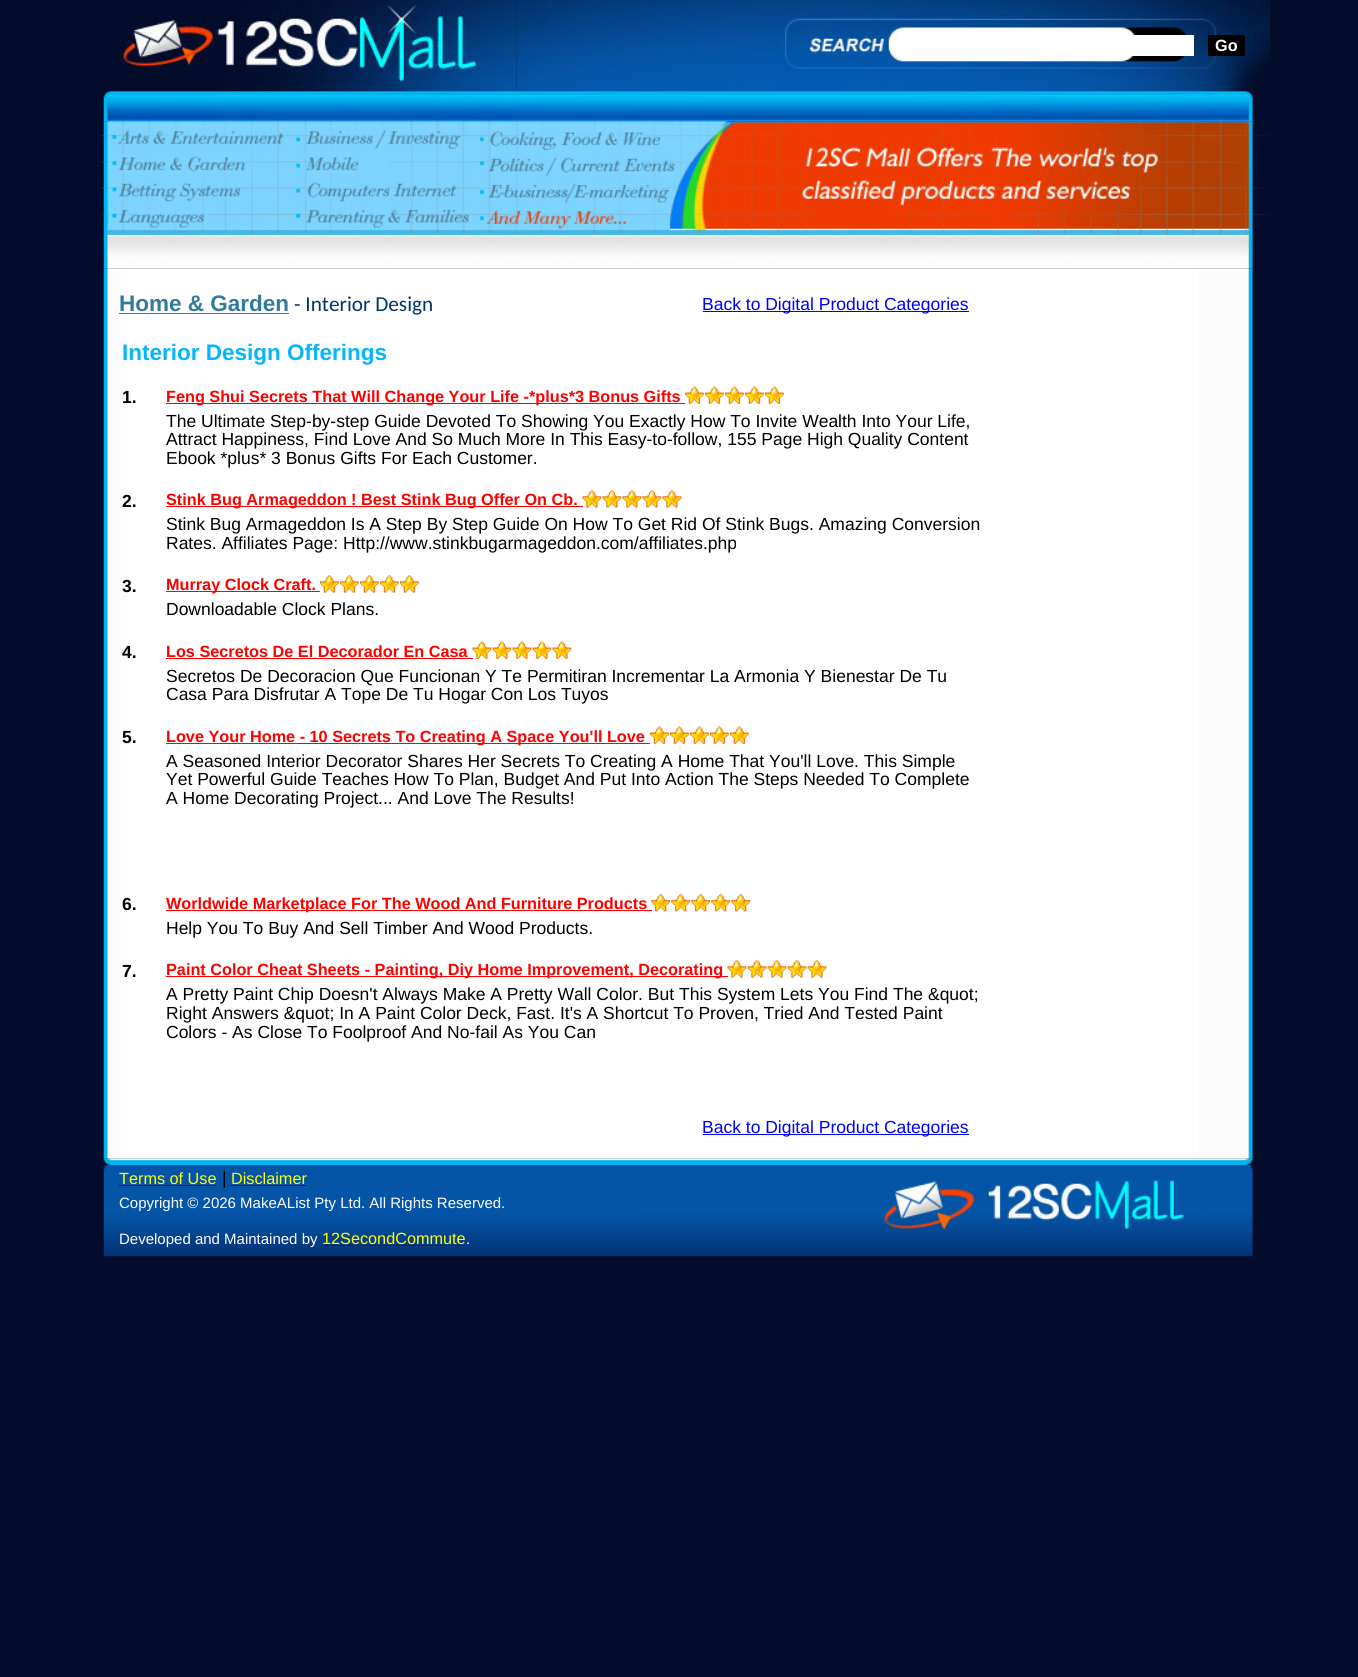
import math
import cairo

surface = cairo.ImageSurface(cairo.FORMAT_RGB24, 1358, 1677)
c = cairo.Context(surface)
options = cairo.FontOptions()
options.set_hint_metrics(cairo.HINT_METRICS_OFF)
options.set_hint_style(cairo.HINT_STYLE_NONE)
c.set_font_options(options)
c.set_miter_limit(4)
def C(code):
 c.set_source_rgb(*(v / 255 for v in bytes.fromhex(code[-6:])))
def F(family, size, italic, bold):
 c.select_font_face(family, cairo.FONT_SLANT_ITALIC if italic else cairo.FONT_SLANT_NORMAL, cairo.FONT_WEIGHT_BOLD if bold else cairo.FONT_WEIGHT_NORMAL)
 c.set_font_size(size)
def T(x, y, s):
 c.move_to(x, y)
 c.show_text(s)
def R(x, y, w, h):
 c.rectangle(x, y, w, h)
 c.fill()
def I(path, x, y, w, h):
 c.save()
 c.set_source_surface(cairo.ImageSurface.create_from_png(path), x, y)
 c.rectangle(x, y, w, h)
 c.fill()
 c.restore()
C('030c2b')
c.paint()
I('2.png',516,0,754,90)
I('1.png',120,0,397,90)
C('ffffff')
R(898,35,296,21)
C('000000')
R(1208,35,37,21)
F('Liberation Sans',16.25,0,1)
C('ffffff')
T(1215,51,'Go')
I('3.png',100,90,1160,32)
I('5.png',103,268,1150,891)
I('4.png',100,121,1170,148)
F('Liberation Sans',22.5,0,1)
C('327a9c')
T(119,311,'Home & Garden')
R(119,313,170,1)
F('Carlito',21.25,0,0)
C('00356a')
T(294,311,'- Interior Design')
C('0000ff')
R(703,311,266,1)
F('Liberation Sans',17.5,0,0)
T(702,310,'Back to Digital Product Categories')
F('Liberation Sans',22.5,0,1)
C('05b5ff')
T(122,360,'Interior Design Offerings')
F('Liberation Sans',17.5,0,1)
C('000000')
T(122,403,'1.')
C('ff0000')
R(166,403,519,1)
F('Liberation Sans',16.25,0,1)
T(166,402,'Feng Shui Secrets That Will Change Your Life -*plus*3 Bonus Gifts')
I('6.png',685,386,19,18)
I('6.png',705,386,19,18)
I('6.png',725,386,19,18)
I('6.png',745,386,19,18)
I('7.png',765,386,19,18)
F('Liberation Sans',17.5,0,0)
C('000000')
T(166,427,'The Ultimate Step-by-step Guide Devoted To Showing You Exactly How To Invite Wealth Into Your Life,')
T(166,445,'Attract Happiness, Find Love And So Much More In This Easy-to-follow, 155 Page High Quality Content')
T(166,464,'Ebook *plus* 3 Bonus Gifts For Each Customer.')
F('Liberation Sans',17.5,0,1)
T(122,507,'2.')
C('ff0000')
R(166,506,417,1)
F('Liberation Sans',16.25,0,1)
T(166,505,'Stink Bug Armageddon ! Best Stink Bug Offer On Cb.')
I('8.png',582,490,20,18)
I('9.png',602,490,20,18)
I('9.png',622,490,20,18)
I('9.png',642,490,20,18)
I('9.png',662,490,20,18)
F('Liberation Sans',17.5,0,0)
C('000000')
T(166,530,'Stink Bug Armageddon Is A Step By Step Guide On How To Get Rid Of Stink Bugs. Amazing Conversion')
T(166,549,'Rates. Affiliates Page: Http://www.stinkbugarmageddon.com/affiliates.php')
F('Liberation Sans',17.5,0,1)
T(122,592,'3.')
C('ff0000')
R(166,591,154,1)
F('Liberation Sans',16.25,0,1)
T(166,590,'Murray Clock Craft.')
I('10.png',320,575,19,18)
I('10.png',340,575,19,18)
I('10.png',360,575,19,18)
I('10.png',380,575,19,18)
I('10.png',400,575,19,18)
F('Liberation Sans',17.5,0,0)
C('000000')
T(166,615,'Downloadable Clock Plans.')
F('Liberation Sans',17.5,0,1)
T(122,658,'4.')
F('Liberation Sans',16.25,0,1)
C('ff0000')
T(166,657,'Los Secretos De El Decorador En Casa')
R(166,658,307,1)
I('11.png',472,641,20,18)
I('12.png',492,641,20,18)
I('12.png',512,641,20,18)
I('13.png',532,641,20,18)
I('13.png',552,641,20,18)
F('Liberation Sans',17.5,0,0)
C('000000')
T(166,682,'Secretos De Decoracion Que Funcionan Y Te Permitiran Incrementar La Armonia Y Bienestar De Tu')
T(166,700,'Casa Para Disfrutar A Tope De Tu Hogar Con Los Tuyos')
F('Liberation Sans',17.5,0,1)
T(122,743,'5.')
C('ff0000')
R(166,743,484,1)
F('Liberation Sans',16.25,0,1)
T(166,742,'Love Your Home - 10 Secrets To Creating A Space You\'ll Love')
I('14.png',650,726,19,18)
I('6.png',670,726,19,18)
I('6.png',690,726,19,18)
I('6.png',710,726,19,18)
I('6.png',730,726,19,18)
F('Liberation Sans',17.5,0,0)
C('000000')
T(166,767,'A Seasoned Interior Decorator Shares Her Secrets To Creating A Home That You\'ll Love. This Simple')
T(166,785,'Yet Powerful Guide Teaches How To Plan, Budget And Put Into Action The Steps Needed To Complete')
T(166,804,'A Home Decorating Project... And Love The Results!')
F('Liberation Sans',17.5,0,1)
T(122,910,'6.')
C('ff0000')
R(166,910,486,1)
F('Liberation Sans',16.25,0,1)
T(166,909,'Worldwide Marketplace For The Wood And Furniture Products')
I('15.png',651,893,20,19)
I('16.png',671,893,20,19)
I('16.png',691,893,20,19)
I('16.png',711,893,20,19)
I('16.png',731,893,20,19)
F('Liberation Sans',17.5,0,0)
C('000000')
T(166,934,'Help You To Buy And Sell Timber And Wood Products.')
F('Liberation Sans',17.5,0,1)
T(122,977,'7.')
C('ff0000')
R(166,976,562,1)
F('Liberation Sans',16.25,0,1)
T(166,975,'Paint Color Cheat Sheets - Painting, Diy Home Improvement, Decorating')
I('17.png',727,960,20,18)
I('9.png',747,960,20,18)
I('9.png',767,960,20,18)
I('9.png',787,960,20,18)
I('18.png',807,960,20,18)
F('Liberation Sans',17.5,0,0)
C('000000')
T(166,1000,'A Pretty Paint Chip Doesn\'t Always Make A Pretty Wall Color. But This System Lets You Find The &quot;')
T(166,1019,'Right Answers &quot; In A Paint Color Deck, Fast. It\'s A Shortcut To Proven, Tried And Tested Paint')
T(166,1038,'Colors - As Close To Foolproof And No-fail As You Can')
C('0000ff')
R(703,1134,266,1)
T(702,1133,'Back to Digital Product Categories')
I('19.png',100,1158,1160,99)
F('Liberation Sans',16.25,0,0)
C('ffff00')
T(119,1184,'Terms of Use')
C('0000ff')
R(119,1185,97,1)
F('Liberation Sans',17.5,0,0)
C('000000')
T(222,1184,'|')
F('Liberation Sans',16.25,0,0)
C('ffff00')
T(231,1184,'Disclaimer')
C('0000ff')
R(231,1185,75,1)
F('Liberation Sans',15,0,0)
C('ffffff')
T(119,1208,'Copyright © 2026 MakeAList Pty Ltd. All Rights Reserved.')
T(119,1244,'Developed and Maintained by')
F('Liberation Sans',16.25,0,0)
C('ffff00')
T(322,1244,'12SecondCommute')
C('0000ff')
R(323,1245,142,1)
F('Liberation Sans',15,0,0)
C('ffffff')
T(466,1244,'.')
surface.write_to_png('o.png')
